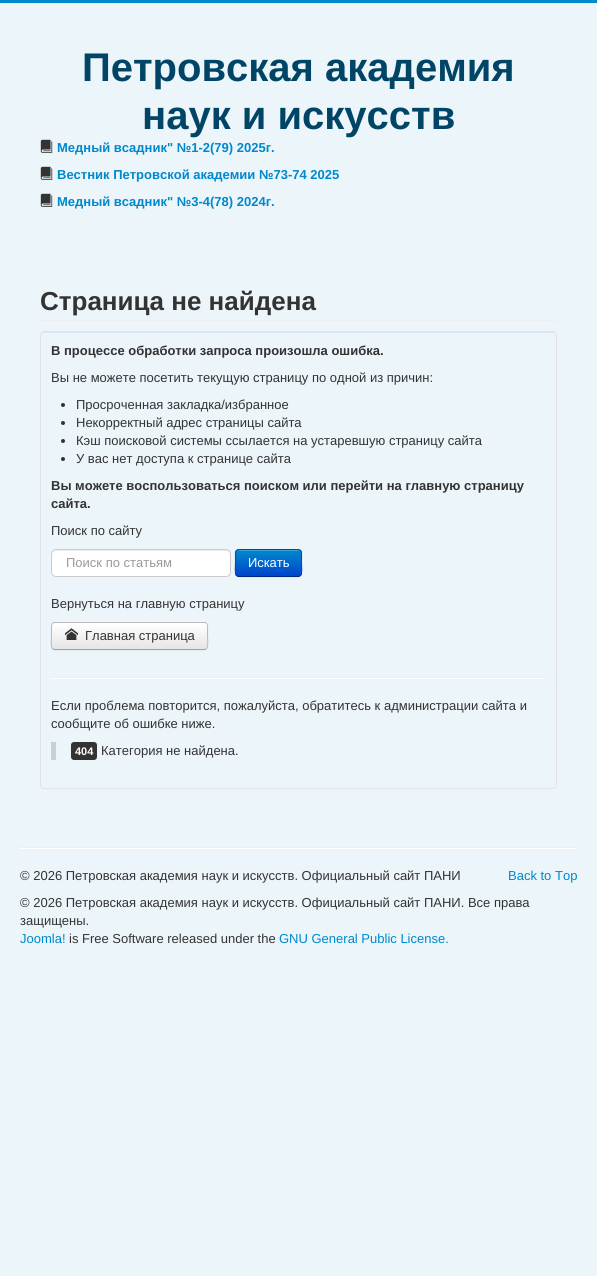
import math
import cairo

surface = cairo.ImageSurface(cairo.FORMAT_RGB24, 597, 1276)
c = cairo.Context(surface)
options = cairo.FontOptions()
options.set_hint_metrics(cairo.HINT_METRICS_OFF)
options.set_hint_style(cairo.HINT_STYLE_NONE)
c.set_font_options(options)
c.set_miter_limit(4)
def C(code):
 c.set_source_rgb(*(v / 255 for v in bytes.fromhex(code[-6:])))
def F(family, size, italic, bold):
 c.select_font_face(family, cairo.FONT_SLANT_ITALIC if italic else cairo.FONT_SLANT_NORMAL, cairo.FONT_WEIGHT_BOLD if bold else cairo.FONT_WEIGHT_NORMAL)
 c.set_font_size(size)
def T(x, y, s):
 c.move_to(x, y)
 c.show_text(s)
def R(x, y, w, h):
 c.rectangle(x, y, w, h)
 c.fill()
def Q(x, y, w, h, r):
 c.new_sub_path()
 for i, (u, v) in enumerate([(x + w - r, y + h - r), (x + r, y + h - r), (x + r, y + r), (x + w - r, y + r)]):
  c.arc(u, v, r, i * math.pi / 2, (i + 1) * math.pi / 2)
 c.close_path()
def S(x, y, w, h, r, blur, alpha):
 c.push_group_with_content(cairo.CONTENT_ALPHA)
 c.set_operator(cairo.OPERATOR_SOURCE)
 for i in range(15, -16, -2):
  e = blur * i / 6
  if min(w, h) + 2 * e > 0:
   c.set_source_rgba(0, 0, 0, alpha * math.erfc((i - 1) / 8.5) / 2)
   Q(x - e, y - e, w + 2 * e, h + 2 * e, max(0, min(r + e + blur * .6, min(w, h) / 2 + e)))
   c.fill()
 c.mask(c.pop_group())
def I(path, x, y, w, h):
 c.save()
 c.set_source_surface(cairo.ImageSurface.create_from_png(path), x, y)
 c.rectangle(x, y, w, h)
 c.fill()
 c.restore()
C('ebf5fa')
c.paint()
C('0088cc')
R(0,0,597,3)
F('Liberation Sans',40,0,1)
C('004466')
T(82,81,'Петровская академия')
T(142,129,'наук и искусств')
I('1.png',40,139,13,14)
F('Liberation Sans',13,0,1)
C('0088cc')
T(57,152,'Медный всадник" №1-2(79) 2025г.')
I('1.png',40,166,13,14)
T(57,179,'Вестник Петровской академии №73-74 2025')
I('1.png',40,193,13,14)
T(57,206,'Медный всадник" №3-4(78) 2024г.')
C('eeeeee')
R(40,320,517,1)
F('Liberation Sans',26,0,1)
C('333333')
T(40,310,'Страница не найдена')
C('dfe9ee')
c.new_path()
c.move_to(44,333)
c.line_to(553,333)
c.curve_to(555,333,556,334,556,336)
c.line_to(556,334)
c.line_to(554,332)
c.line_to(44,332)
c.curve_to(42,332,41,334,41,336)
c.curve_to(41,334,42,333,44,333)
c.close_path()
c.fill()
Q(40.5,331.5,516,457,3.5)
C('e3e3e3')
c.set_line_width(1)
c.stroke()
F('Liberation Sans',13,0,1)
C('333333')
T(51,355,'В процессе обработки запроса произошла ошибка.')
F('Liberation Sans',13,0,0)
T(51,382,'Вы не можете посетить текущую страницу по одной из причин:')
c.new_path()
c.arc(63,405,2,0,2 * math.pi)
c.fill()
T(76,409,'Просроченная закладка/избранное')
c.new_path()
c.arc(63,423,2,0,2 * math.pi)
c.fill()
T(76,427,'Некорректный адрес страницы сайта')
c.new_path()
c.arc(63,441,2,0,2 * math.pi)
c.fill()
T(76,445,'Кэш поисковой системы ссылается на устаревшую страницу сайта')
c.new_path()
c.arc(63,459,2,0,2 * math.pi)
c.fill()
T(76,463,'У вас нет доступа к странице сайта')
F('Liberation Sans',13,0,1)
T(51,490,'Вы можете воспользоваться поиском или перейти на главную страницу')
T(51,508,'сайта.')
F('Liberation Sans',13,0,0)
T(51,535,'Поиск по сайту')
C('ffffff')
Q(51,549,180,28,5)
c.fill()
C('ececec')
c.new_path()
c.move_to(56,551)
c.line_to(226,551)
c.curve_to(228,551,230,553,230,555)
c.line_to(230,554)
c.curve_to(230,552,228,550,226,550)
c.line_to(56,550)
c.curve_to(54,550,52,552,52,554)
c.line_to(52,555)
c.curve_to(52,553,54,551,56,551)
c.close_path()
c.fill()
Q(51.5,549.5,179,27,4.5)
C('cccccc')
c.stroke()
C('999999')
T(66,567,'Поиск по статьям')
C('000000')
S(235,550,67,28,4,1,.05)
C('006dcc')
Q(235,549,67,28,4)
c.fill()
c.save()
Q(235,549,67,28,4)
c.clip()
gradient = cairo.LinearGradient(269,550,269,576)
gradient.add_color_stop_rgba(0,0,0.533,0.8,1)
gradient.add_color_stop_rgba(1,0,0.267,0.8,1)
c.set_source(gradient)
R(235,550,67,26)
c.restore()
C('339fd6')
c.new_path()
c.move_to(239,551)
c.line_to(298,551)
c.curve_to(300,551,301,552,301,554)
c.curve_to(301,548,293,550,288,550)
c.line_to(249,550)
c.curve_to(244,550,236,548,236,554)
c.curve_to(236,552,237,551,239,551)
c.close_path()
c.fill()
c.new_path()
c.move_to(300.5,575.5)
c.line_to(298.5,576.5)
c.line_to(238.5,576.5)
c.line_to(236.5,575.5)
C('002a80')
c.stroke()
c.new_path()
c.move_to(236.5,575.5)
c.curve_to(234.5,573,235.5,565.5,235.5,563)
c.curve_to(235.5,548,233.5,549.5,249,549.5)
c.line_to(288,549.5)
c.curve_to(303.5,549.5,301.5,548,301.5,563)
c.curve_to(301.5,565.5,302.5,573,300.5,575.5)
C('0044cc')
c.stroke()
C('ffffff')
T(248,567,'Искать')
C('333333')
T(51,608,'Вернуться на главную страницу')
C('000000')
S(51,623,157,28,4,1,.05)
c.save()
Q(51,622,157,28,4)
c.clip()
gradient = cairo.LinearGradient(130,623,130,649)
gradient.add_color_stop_rgba(0,1,1,1,1)
gradient.add_color_stop_rgba(1,0.902,0.902,0.902,1)
c.set_source(gradient)
R(51,623,157,26)
c.restore()
c.set_source_rgba(1,1,1,0.2)
c.new_path()
c.move_to(55,624)
c.line_to(204,624)
c.curve_to(206,624,207,625,207,627)
c.curve_to(207,625,207,624,205,623)
c.line_to(80,623)
c.curve_to(72,623,52,618,52,627)
c.curve_to(52,625,53,624,55,624)
c.close_path()
c.fill()
c.new_path()
c.move_to(206.5,648.5)
c.curve_to(206,649,205,649.5,204,649.5)
c.line_to(55,649.5)
c.curve_to(54,649.5,53,649,52.5,648.5)
C('a2a2a2')
c.stroke()
c.new_path()
c.move_to(52.5,648.5)
c.curve_to(50.5,646,51.5,638.5,51.5,636)
c.line_to(51.5,629.5)
c.curve_to(51.5,626.5,51,622.5,55,622.5)
c.line_to(204,622.5)
c.curve_to(208,622.5,207.5,626.5,207.5,629.5)
c.line_to(207.5,636)
c.curve_to(207.5,638.5,208.5,646,206.5,648.5)
C('bbbbbb')
c.stroke()
I('2.png',65,628,13,12)
C('333333')
T(85,640,'Главная страница')
C('eeeeee')
R(51,677,495,1)
C('ffffff')
R(51,678,495,1)
C('333333')
T(51,710,'Если проблема повторится, пожалуйста, обратитесь к администрации сайта и')
T(51,728,'сообщите об ошибке ниже.')
C('c8d0d5')
R(51,742,5,18)
C('333333')
Q(71,742,26,18,3)
c.fill()
F('Liberation Sans',11,0,1)
C('ffffff')
T(75,755,'404')
F('Liberation Sans',13,0,0)
C('333333')
T(101,755,'Категория не найдена.')
C('eeeeee')
R(20,847,557,1)
C('ffffff')
R(20,848,557,1)
C('333333')
T(20,880,'© 2026 Петровская академия наук и искусств. Официальный сайт ПАНИ')
C('0088cc')
T(508,880,'Back to Top')
C('333333')
T(20,907,'© 2026 Петровская академия наук и искусств. Официальный сайт ПАНИ. Все права')
T(20,925,'защищены.')
C('0088cc')
T(20,943,'Joomla!')
C('333333')
T(69,943,'is Free Software released under the')
C('0088cc')
T(279,943,'GNU General Public License.')
surface.write_to_png('o.png')
